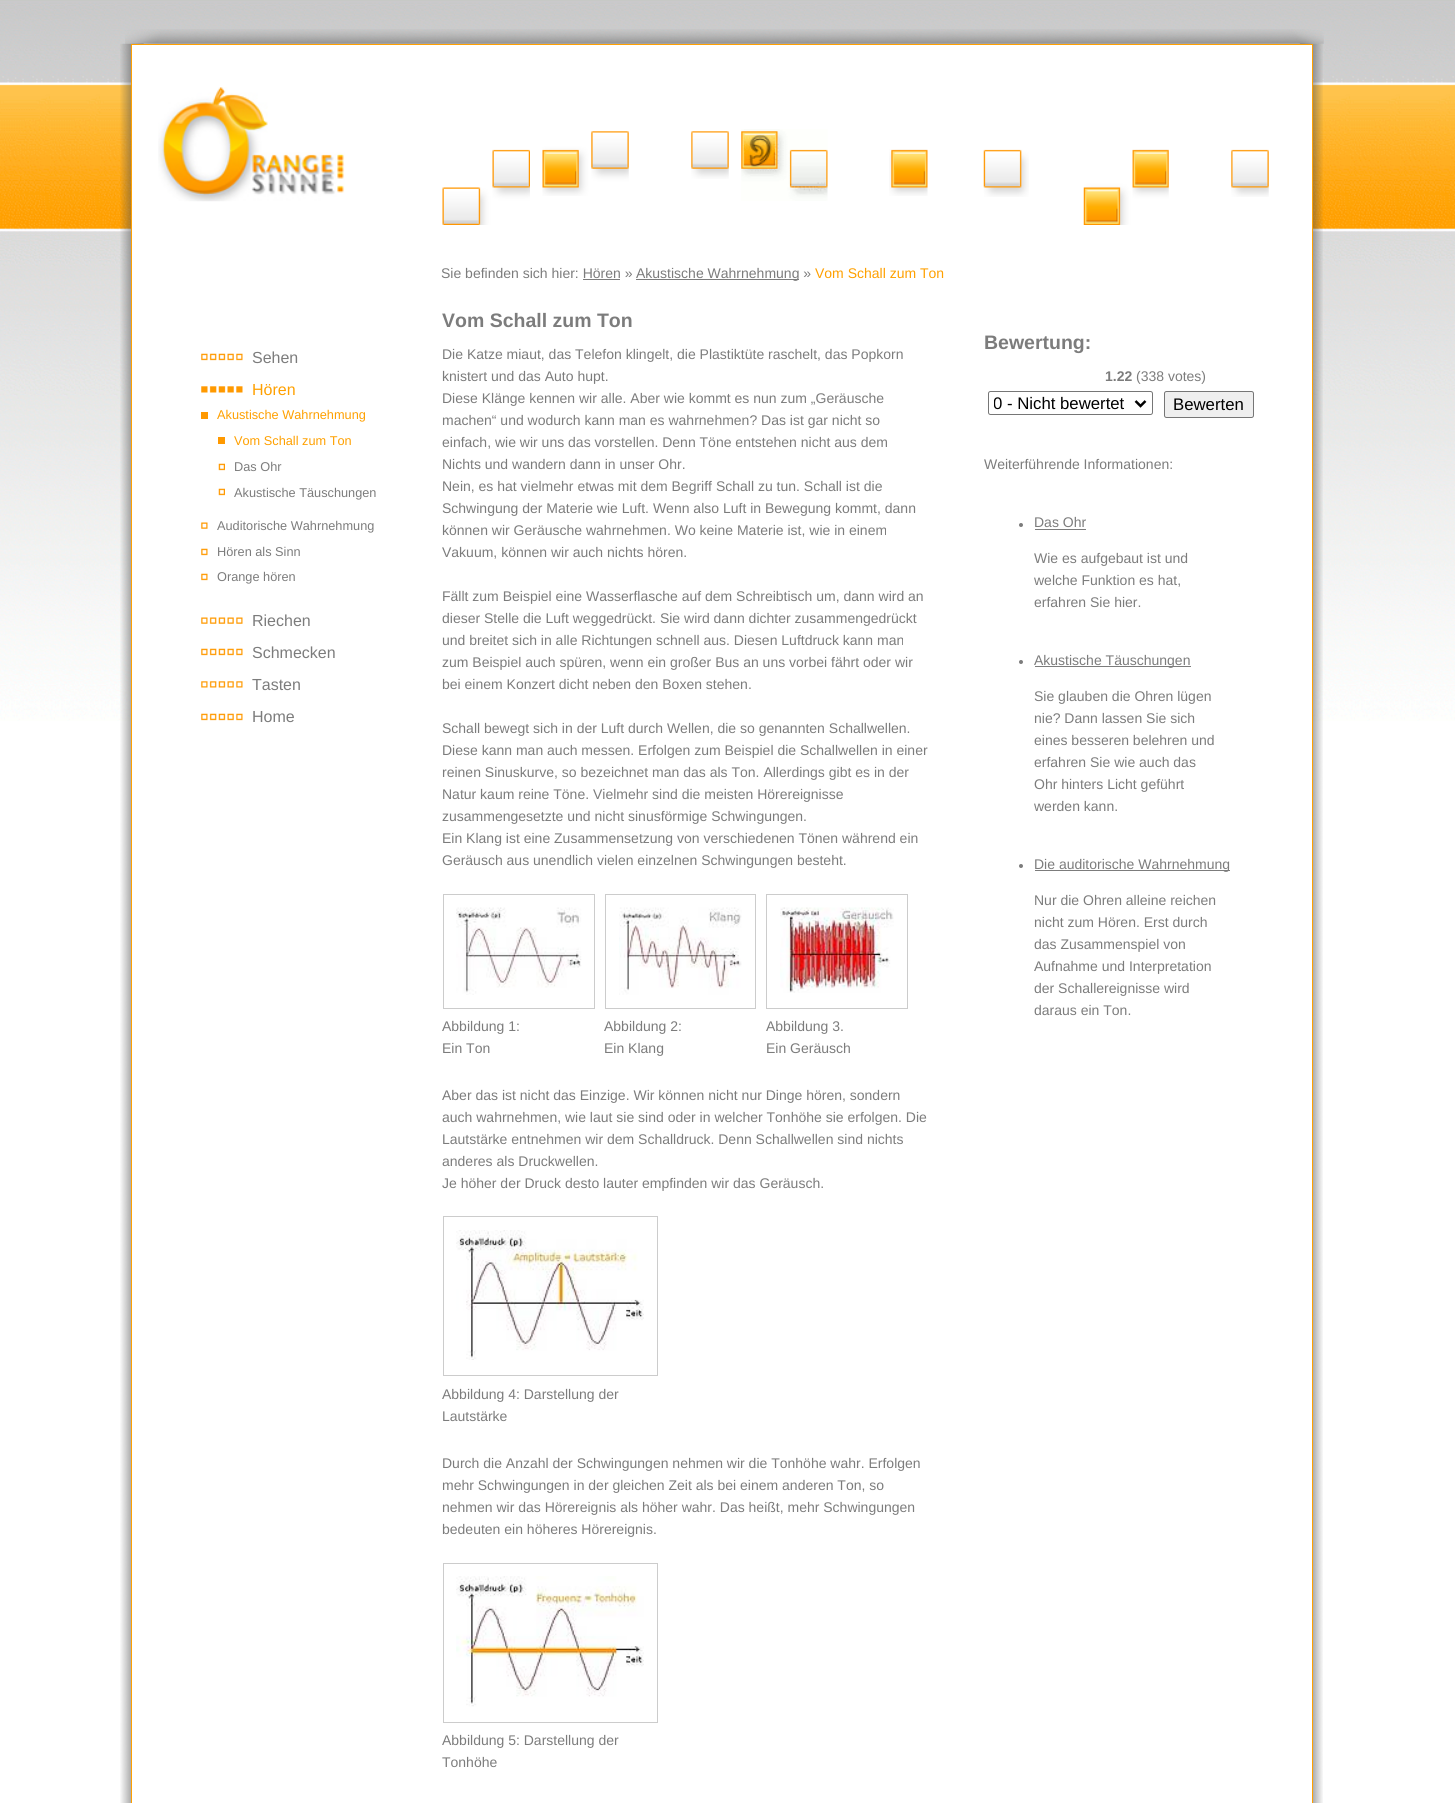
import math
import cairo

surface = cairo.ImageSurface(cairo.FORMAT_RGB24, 1455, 1803)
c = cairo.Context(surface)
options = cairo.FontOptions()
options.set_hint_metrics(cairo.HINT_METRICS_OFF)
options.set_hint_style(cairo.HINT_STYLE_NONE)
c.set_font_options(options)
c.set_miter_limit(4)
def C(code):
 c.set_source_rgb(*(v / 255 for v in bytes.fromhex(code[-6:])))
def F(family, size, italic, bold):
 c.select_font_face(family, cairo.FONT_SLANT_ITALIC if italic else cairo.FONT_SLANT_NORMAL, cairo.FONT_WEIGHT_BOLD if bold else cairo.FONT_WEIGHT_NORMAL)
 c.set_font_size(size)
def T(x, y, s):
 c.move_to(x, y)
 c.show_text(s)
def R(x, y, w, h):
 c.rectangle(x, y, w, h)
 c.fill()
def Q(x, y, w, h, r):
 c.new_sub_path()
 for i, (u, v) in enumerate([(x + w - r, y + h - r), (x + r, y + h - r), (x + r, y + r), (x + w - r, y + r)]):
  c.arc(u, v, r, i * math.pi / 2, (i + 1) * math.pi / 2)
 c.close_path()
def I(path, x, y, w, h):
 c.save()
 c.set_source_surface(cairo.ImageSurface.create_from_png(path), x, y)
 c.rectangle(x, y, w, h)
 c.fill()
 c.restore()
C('ffffff')
c.paint()
I('1.png',0,0,1455,721)
I('2.png',125,29,1199,15)
I('3.png',120,43,1203,1760)
C('ffffff')
c.rectangle(131.5,44.5,1181,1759)
c.fill_preserve()
C('ffa000')
c.set_line_width(1)
c.stroke()
I('4.png',158,87,187,115)
I('5.png',442,149,88,76)
I('6.png',542,131,87,65)
I('7.png',691,131,38,48)
I('8.png',741,129,87,72)
I('9.png',889,149,39,47)
I('10.png',983,149,46,48)
I('11.png',1083,149,86,76)
I('12.png',1231,149,38,48)
F('Liberation Sans',14,0,0)
C('7c7c7c')
T(441,278,'Sie befinden sich hier: Hören »')
R(636,279,163,1)
T(636,278,'Akustische Wahrnehmung »')
C('ffa000')
T(815,278,'Vom Schall zum Ton')
C('7c7c7c')
R(583,279,37,1)
I('13.png',201,353,42,8)
F('Liberation Sans',16,0,0)
T(252,363,'Sehen')
I('14.png',201,386,42,7)
C('ffa000')
T(252,395,'Hören')
C('ff9900')
R(201,412,7,7)
F('Liberation Sans',12.75,0,0)
C('ffa000')
T(217,419,'Akustische Wahrnehmung')
C('ff9900')
R(218,437,7,7)
C('ffa000')
T(234,445,'Vom Schall zum Ton')
I('15.png',218,463,7,8)
C('7c7c7c')
T(234,471,'Das Ohr')
I('15.png',218,488,7,8)
T(234,497,'Akustische Täuschungen')
I('16.png',201,522,7,7)
T(217,530,'Auditorische Wahrnehmung')
I('17.png',201,548,7,8)
T(217,556,'Hören als Sinn')
I('17.png',201,573,7,8)
T(217,581,'Orange hören')
I('18.png',201,617,42,7)
F('Liberation Sans',16,0,0)
T(252,626,'Riechen')
I('13.png',201,648,42,8)
T(252,658,'Schmecken')
I('19.png',201,681,42,7)
T(252,690,'Tasten')
I('13.png',201,713,42,8)
T(252,722,'Home')
F('Liberation Sans',19.5,0,1)
T(442,327,'Vom Schall zum Ton')
F('Liberation Sans',14,0,0)
T(442,359,'Die Katze miaut, das Telefon klingelt, die Plastiktüte raschelt, das Popkorn')
T(442,381,'knistert und das Auto hupt.')
T(442,403,'Diese Klänge kennen wir alle. Aber wie kommt es nun zum „Geräusche')
T(442,425,'machen“ und wodurch kann man es wahrnehmen? Das ist gar nicht so')
T(442,447,'einfach, wie wir uns das vorstellen. Denn Töne entstehen nicht aus dem')
T(442,469,'Nichts und wandern dann in unser Ohr.')
T(442,491,'Nein, es hat vielmehr etwas mit dem Begriff Schall zu tun. Schall ist die')
T(442,513,'Schwingung der Materie wie Luft. Wenn also Luft in Bewegung kommt, dann')
T(442,535,'können wir Geräusche wahrnehmen. Wo keine Materie ist, wie in einem')
T(442,557,'Vakuum, können wir auch nichts hören.')
T(442,601,'Fällt zum Beispiel eine Wasserflasche auf dem Schreibtisch um, dann wird an')
T(442,623,'dieser Stelle die Luft weggedrückt. Sie wird dann dichter zusammengedrückt')
T(442,645,'und breitet sich in alle Richtungen schnell aus. Diesen Luftdruck kann man')
T(442,667,'zum Beispiel auch spüren, wenn ein großer Bus an uns vorbei fährt oder wir')
T(442,689,'bei einem Konzert dicht neben den Boxen stehen.')
T(442,733,'Schall bewegt sich in der Luft durch Wellen, die so genannten Schallwellen.')
T(442,755,'Diese kann man auch messen. Erfolgen zum Beispiel die Schallwellen in einer')
T(442,777,'reinen Sinuskurve, so bezeichnet man das als Ton. Allerdings gibt es in der')
T(442,799,'Natur kaum reine Töne. Vielmehr sind die meisten Hörereignisse')
T(442,821,'zusammengesetzte und nicht sinusförmige Schwingungen.')
T(442,843,'Ein Klang ist eine Zusammensetzung von verschiedenen Tönen während ein')
T(442,865,'Geräusch aus unendlich vielen einzelnen Schwingungen besteht.')
c.rectangle(443.5,894.5,151,114)
C('cccccc')
c.stroke()
I('20.png',456,907,126,88)
C('7c7c7c')
T(442,1031,'Abbildung 1:')
T(442,1053,'Ein Ton')
c.rectangle(605.5,894.5,150,114)
C('cccccc')
c.stroke()
I('21.png',619,907,123,88)
C('7c7c7c')
T(604,1031,'Abbildung 2:')
T(604,1053,'Ein Klang')
c.rectangle(766.5,894.5,141,114)
C('cccccc')
c.stroke()
I('22.png',780,907,114,86)
C('7c7c7c')
T(766,1031,'Abbildung 3.')
T(766,1053,'Ein Geräusch')
T(442,1100,'Aber das ist nicht das Einzige. Wir können nicht nur Dinge hören, sondern')
T(442,1122,'auch wahrnehmen, wie laut sie sind oder in welcher Tonhöhe sie erfolgen. Die')
T(442,1144,'Lautstärke entnehmen wir dem Schalldruck. Denn Schallwellen sind nichts')
T(442,1166,'anderes als Druckwellen.')
T(442,1188,'Je höher der Druck desto lauter empfinden wir das Geräusch.')
c.rectangle(443.5,1216.5,214,159)
C('cccccc')
c.stroke()
I('23.png',456,1230,188,130)
C('7c7c7c')
T(442,1399,'Abbildung 4: Darstellung der')
T(442,1421,'Lautstärke')
T(442,1468,'Durch die Anzahl der Schwingungen nehmen wir die Tonhöhe wahr. Erfolgen')
T(442,1490,'mehr Schwingungen in der gleichen Zeit als bei einem anderen Ton, so')
T(442,1512,'nehmen wir das Hörereignis als höher wahr. Das heißt, mehr Schwingungen')
T(442,1534,'bedeuten ein höheres Hörereignis.')
c.rectangle(443.5,1563.5,214,159)
C('cccccc')
c.stroke()
I('24.png',456,1576,188,131)
C('7c7c7c')
T(442,1745,'Abbildung 5: Darstellung der')
T(442,1767,'Tonhöhe')
F('Liberation Sans',19.5,0,1)
T(984,349,'Bewertung:')
F('Liberation Sans',14,0,1)
T(1105,381,'1.22')
F('Liberation Sans',14,0,0)
T(1136,381,'(338 votes)')
Q(988.5,391.5,164,23,2)
C('767676')
c.stroke()
c.new_path()
c.move_to(1135.5,401)
c.line_to(1140.5,406)
c.line_to(1145.5,401)
C('000000')
c.set_line_width(2.5)
c.stroke()
c.save()
c.rectangle(994,393,137,21)
c.clip()
F('Liberation Sans',16.75,0,0)
T(993,409,'0 - Nicht bewertet')
c.restore()
C('efefef')
Q(1164.5,391.5,89,26,2)
c.fill_preserve()
C('767676')
c.set_line_width(1)
c.stroke()
F('Liberation Sans',16.75,0,0)
C('000000')
T(1173,410,'Bewerten')
F('Liberation Sans',14,0,0)
C('7c7c7c')
T(984,469,'Weiterführende Informationen:')
c.new_path()
c.arc(1021,525,2,0,2 * math.pi)
c.fill()
T(1034,527,'Das Ohr')
R(1035,529,51,1)
T(1034,563,'Wie es aufgebaut ist und')
T(1034,585,'welche Funktion es hat,')
T(1034,607,'erfahren Sie hier.')
c.new_path()
c.arc(1021,662,2,0,2 * math.pi)
c.fill()
R(1035,666,156,1)
T(1034,665,'Akustische Täuschungen')
T(1034,701,'Sie glauben die Ohren lügen')
T(1034,723,'nie? Dann lassen Sie sich')
T(1034,745,'eines besseren belehren und')
T(1034,767,'erfahren Sie wie auch das')
T(1034,789,'Ohr hinters Licht geführt')
T(1034,811,'werden kann.')
c.new_path()
c.arc(1021,866,2,0,2 * math.pi)
c.fill()
R(1035,870,195,1)
T(1034,869,'Die auditorische Wahrnehmung')
T(1034,905,'Nur die Ohren alleine reichen')
T(1034,927,'nicht zum Hören. Erst durch')
T(1034,949,'das Zusammenspiel von')
T(1034,971,'Aufnahme und Interpretation')
T(1034,993,'der Schallereignisse wird')
T(1034,1015,'daraus ein Ton.')
surface.write_to_png('o.png')
